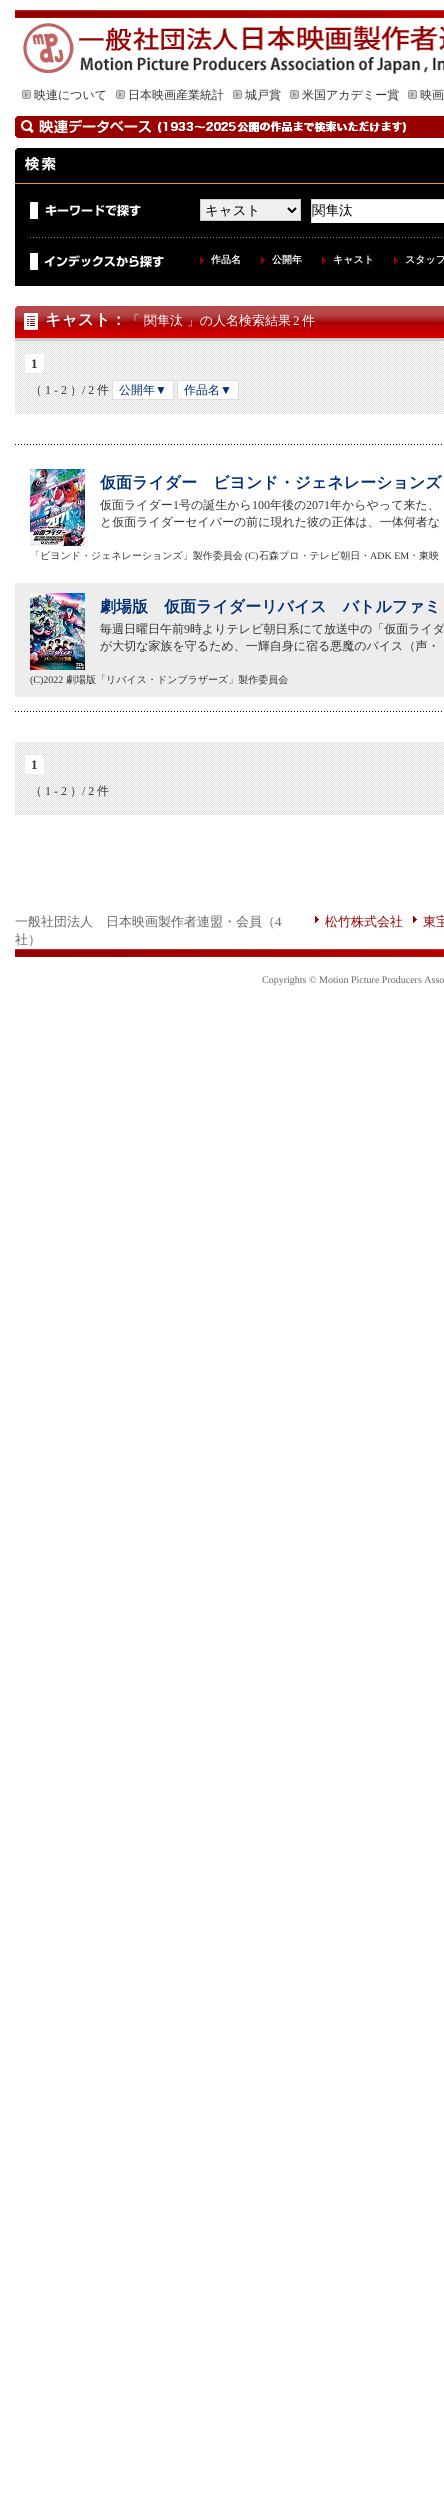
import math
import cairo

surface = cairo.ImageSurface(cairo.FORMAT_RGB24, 444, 2497)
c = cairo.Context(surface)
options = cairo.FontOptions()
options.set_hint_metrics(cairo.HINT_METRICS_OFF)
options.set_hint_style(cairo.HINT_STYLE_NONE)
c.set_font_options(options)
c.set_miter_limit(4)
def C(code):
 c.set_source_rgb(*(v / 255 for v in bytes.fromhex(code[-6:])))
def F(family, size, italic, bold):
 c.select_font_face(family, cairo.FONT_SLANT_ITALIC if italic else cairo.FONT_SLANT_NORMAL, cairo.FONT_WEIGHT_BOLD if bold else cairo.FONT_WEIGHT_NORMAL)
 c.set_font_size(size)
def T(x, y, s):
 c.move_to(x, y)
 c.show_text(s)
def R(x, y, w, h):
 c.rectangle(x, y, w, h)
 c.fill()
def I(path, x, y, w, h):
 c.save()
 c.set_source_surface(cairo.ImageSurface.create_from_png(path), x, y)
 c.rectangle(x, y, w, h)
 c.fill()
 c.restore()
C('ffffff')
c.paint()
I('1.png',15,10,429,64)
I('2.png',22,90,9,9)
F('WenQuanYi Zen Hei Medium',12,0,0)
C('333333')
T(34,99,'映連について')
I('2.png',116,90,9,9)
T(128,99,'日本映画産業統計')
I('2.png',233,90,9,9)
T(245,99,'城戸賞')
I('2.png',290,90,9,9)
T(302,99,'米国アカデミー賞')
I('2.png',408,90,9,9)
T(420,99,'映画')
I('3.png',15,116,429,22)
C('000000')
R(15,148,429,138)
I('4.png',15,148,2,2)
C('f19149')
R(15,183,429,1)
I('5.png',25,157,31,14)
I('6.png',30,237,412,1)
I('7.png',30,202,111,17)
C('efefef')
c.rectangle(200.5,199.5,100,21)
c.fill_preserve()
C('cccccc')
c.set_line_width(1)
c.stroke()
c.new_path()
c.move_to(288,208)
c.line_to(292,212)
c.line_to(296,208)
C('000000')
c.set_line_width(2)
c.stroke()
F('WenQuanYi Zen Hei Medium',13.5,0,0)
T(205,215,'キャスト')
C('ffffff')
R(312,200,132,23)
C('dbdbdb')
R(311,199,133,1)
R(311,199,1,24)
C('000000')
T(312,215,'関隼汰')
I('8.png',30,253,134,17)
I('9.png',200,257,4,7)
F('WenQuanYi Zen Hei',10,0,1)
C('ffffff')
T(211,263,'作品名')
I('9.png',261,257,4,7)
T(272,263,'公開年')
I('9.png',322,257,4,7)
T(333,263,'キャスト')
I('9.png',394,257,4,7)
T(405,263,'スタッフ')
C('d40000')
R(15,335,429,3)
I('10.png',15,306,429,29)
C('cccccc')
R(15,338,429,3)
F('WenQuanYi Zen Hei',16,0,1)
C('ffffff')
T(45,325,'キャスト：')
F('WenQuanYi Zen Hei Medium',13,0,0)
T(127,325,'「 関隼汰 」の人名検索結果')
F('Liberation Serif',13,0,0)
T(293,325,'2')
F('WenQuanYi Zen Hei Medium',13,0,0)
T(302,325,'件')
I('11.png',15,341,429,73)
R(25,354,19,19)
F('Liberation Serif',13,0,1)
C('333333')
T(31,368,'1')
F('WenQuanYi Zen Hei Medium',12,0,0)
T(30,394,'（')
F('Liberation Serif',12,0,0)
T(45,394,'1 - 2')
F('WenQuanYi Zen Hei Medium',12,0,0)
T(70,394,'）')
F('Liberation Serif',12,0,0)
T(82,394,'/ 2')
F('WenQuanYi Zen Hei Medium',12,0,0)
T(97,394,'件')
C('ffffff')
c.rectangle(112.5,380.5,61,19)
c.fill_preserve()
C('dddddd')
c.set_line_width(1)
c.stroke()
C('002e73')
T(119,394,'公開年')
F('Liberation Serif',12,0,0)
T(155,394,'▼')
C('ffffff')
c.rectangle(177.5,380.5,61,19)
c.fill_preserve()
C('dddddd')
c.stroke()
F('WenQuanYi Zen Hei Medium',12,0,0)
C('002e73')
T(184,394,'作品名')
F('Liberation Serif',12,0,0)
T(220,394,'▼')
I('12.png',15,444,427,1)
I('12.png',15,711,427,1)
I('13.png',30,469,55,77)
F('WenQuanYi Zen Hei',16,0,1)
T(100,488,'仮面ライダー　ビヨンド・ジェネレーションズ')
F('WenQuanYi Zen Hei Medium',12,0,0)
C('333333')
T(100,509,'仮面ライダー')
F('Liberation Serif',12,0,0)
T(173,509,'1')
F('WenQuanYi Zen Hei Medium',12,0,0)
T(179,509,'号の誕生から')
F('Liberation Serif',12,0,0)
T(252,509,'100')
F('WenQuanYi Zen Hei Medium',12,0,0)
T(270,509,'年後の')
F('Liberation Serif',12,0,0)
T(306,509,'2071')
F('WenQuanYi Zen Hei Medium',12,0,0)
T(330,509,'年からやって来た、')
T(100,526,'と仮面ライダーセイバーの前に現れた彼の正体は、一体何者な')
F('WenQuanYi Zen Hei Medium',10,0,0)
T(30,559,'「ビヨンド・ジェネレーションズ」製作委員会')
F('Liberation Serif',10,0,0)
T(245,559,'(C)')
F('WenQuanYi Zen Hei Medium',10,0,0)
T(259,559,'石森プロ・テレビ朝日・')
F('Liberation Serif',10,0,0)
T(370,559,'ADK EM')
F('WenQuanYi Zen Hei Medium',10,0,0)
T(409,559,'・東映')
C('ededed')
R(15,583,429,114)
I('14.png',30,593,55,77)
F('WenQuanYi Zen Hei',16,0,1)
C('002e73')
T(100,612,'劇場版　仮面ライダーリバイス　バトルファミ')
F('WenQuanYi Zen Hei Medium',12,0,0)
C('333333')
T(100,633,'毎週日曜日午前')
F('Liberation Serif',12,0,0)
T(184,633,'9')
F('WenQuanYi Zen Hei Medium',12,0,0)
T(190,633,'時よりテレビ朝日系にて放送中の「仮面ライダ')
T(100,650,'が大切な家族を守るため、一輝自身に宿る悪魔のバイス（声・')
F('Liberation Serif',10,0,0)
T(30,683,'(C)2022')
F('WenQuanYi Zen Hei Medium',10,0,0)
T(66,683,'劇場版「リバイス・ドンブラザーズ」製作委員会')
I('11.png',15,742,429,73)
C('ffffff')
R(25,755,19,19)
F('Liberation Serif',13,0,1)
C('333333')
T(31,769,'1')
F('WenQuanYi Zen Hei Medium',12,0,0)
T(30,795,'（')
F('Liberation Serif',12,0,0)
T(45,795,'1 - 2')
F('WenQuanYi Zen Hei Medium',12,0,0)
T(70,795,'）')
F('Liberation Serif',12,0,0)
T(82,795,'/ 2')
F('WenQuanYi Zen Hei Medium',12,0,0)
T(97,795,'件')
F('WenQuanYi Zen Hei Medium',13,0,0)
C('666666')
T(15,926,'一般社団法人　日本映画製作者連盟・会員（')
F('Liberation Serif',13,0,0)
T(275,926,'4')
F('WenQuanYi Zen Hei Medium',13,0,0)
T(15,944,'社）')
I('15.png',315,916,4,7)
C('990000')
T(325,926,'松竹株式会社')
I('15.png',413,916,4,7)
T(423,926,'東宝')
I('16.png',15,949,429,8)
F('Liberation Serif',10,0,0)
C('666666')
T(262,983,'Copyrights © Motion Picture Producers Asso')
surface.write_to_png('o.png')
